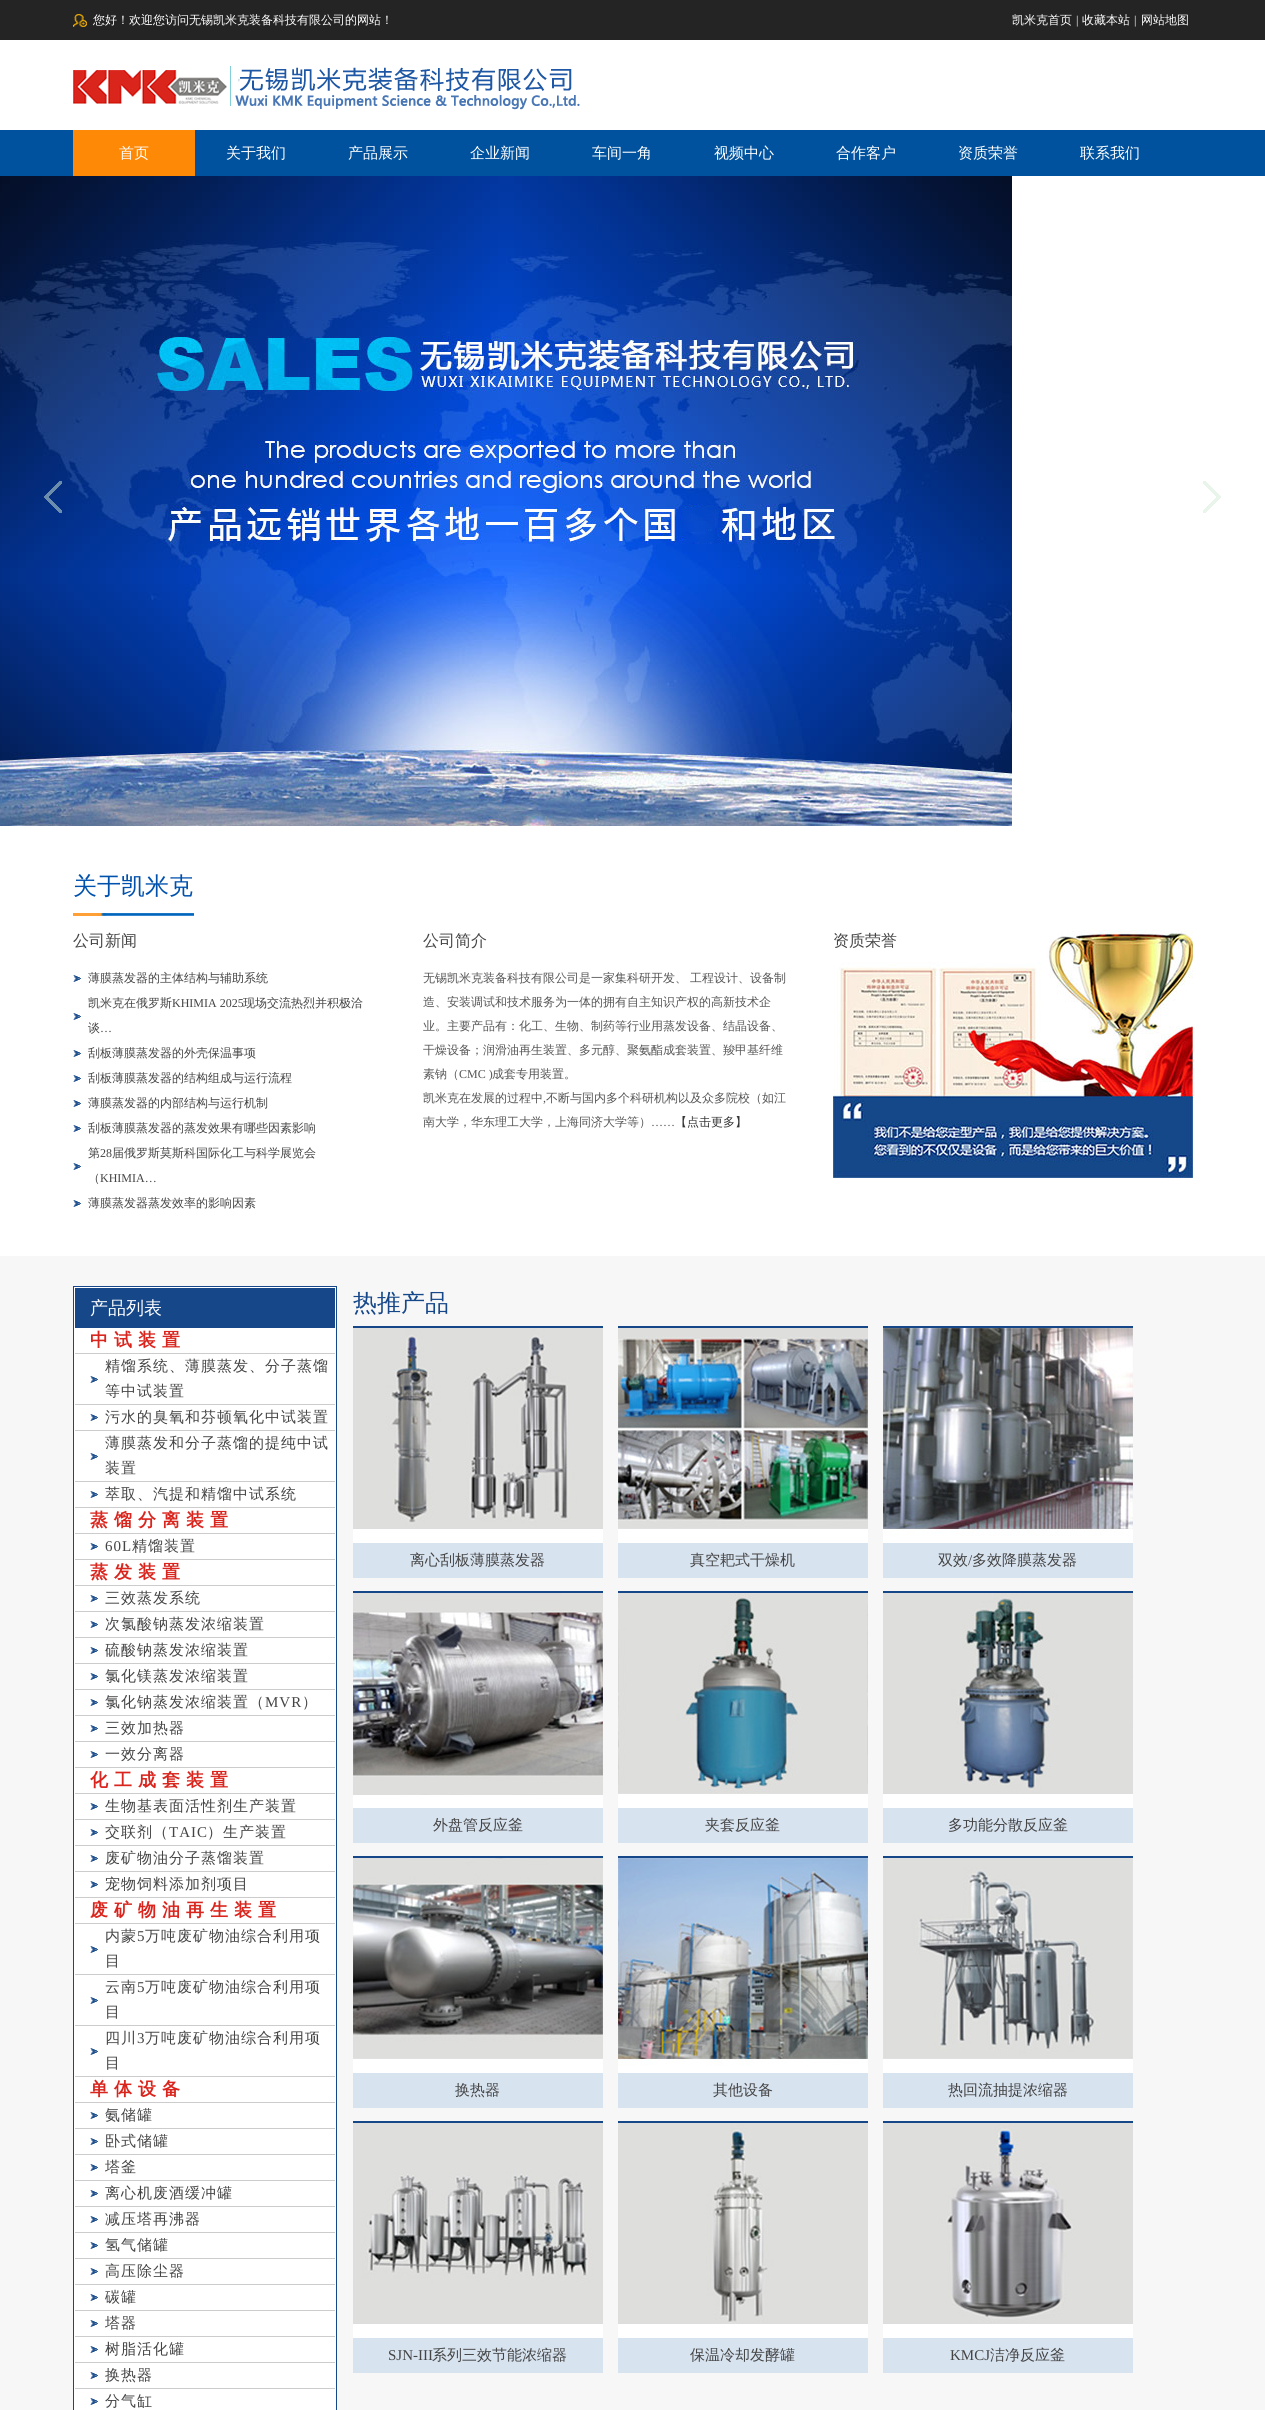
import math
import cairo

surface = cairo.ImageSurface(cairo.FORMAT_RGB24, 1265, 2410)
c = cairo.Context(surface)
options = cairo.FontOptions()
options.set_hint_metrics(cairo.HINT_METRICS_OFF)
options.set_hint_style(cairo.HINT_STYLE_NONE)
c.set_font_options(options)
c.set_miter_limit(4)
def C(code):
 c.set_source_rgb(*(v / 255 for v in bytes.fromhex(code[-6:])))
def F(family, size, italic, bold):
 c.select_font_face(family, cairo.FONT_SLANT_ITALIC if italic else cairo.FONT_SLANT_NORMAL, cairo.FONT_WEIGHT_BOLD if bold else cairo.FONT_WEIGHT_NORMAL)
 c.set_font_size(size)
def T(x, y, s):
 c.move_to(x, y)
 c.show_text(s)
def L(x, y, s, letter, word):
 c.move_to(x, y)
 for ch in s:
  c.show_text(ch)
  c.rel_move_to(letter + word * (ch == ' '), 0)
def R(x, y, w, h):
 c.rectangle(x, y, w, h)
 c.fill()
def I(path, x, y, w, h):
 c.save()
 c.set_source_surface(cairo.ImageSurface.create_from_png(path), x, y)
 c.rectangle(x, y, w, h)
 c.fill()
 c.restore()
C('ffffff')
c.paint()
C('242424')
R(0,0,1265,40)
I('1.png',73,14,14,13)
F('WenQuanYi Zen Hei Medium',12,0,0)
C('ffffff')
T(93,24,'您好！欢迎您访问无锡凯米克装备科技有限公司的网站！')
T(1012,24,'凯米克首页')
F('Liberation Serif',12,0,0)
T(1076,24,'|')
F('WenQuanYi Zen Hei Medium',12,0,0)
T(1082,24,'收藏本站')
F('Liberation Serif',12,0,0)
T(1134,24,'|')
F('WenQuanYi Zen Hei Medium',12,0,0)
T(1141,24,'网站地图')
I('2.png',73,66,507,44)
C('00529e')
R(0,130,1265,46)
C('fe8906')
R(73,130,122,46)
F('WenQuanYi Zen Hei Medium',15,0,0)
C('ffffff')
T(119,158,'首页')
T(226,158,'关于我们')
T(348,158,'产品展示')
T(470,158,'企业新闻')
T(592,158,'车间一角')
T(714,158,'视频中心')
T(836,158,'合作客户')
T(958,158,'资质荣誉')
T(1080,158,'联系我们')
I('3.png',0,176,1012,650)
I('4.png',44,481,18,32)
I('5.png',1203,481,18,32)
I('6.png',73,913,121,3)
F('WenQuanYi Zen Hei Medium',24,0,0)
C('0051ac')
T(73,894,'关于凯米克')
F('WenQuanYi Zen Hei Medium',16,0,0)
C('444444')
T(73,946,'公司新闻')
I('7.png',73,975,8,7)
F('WenQuanYi Zen Hei Medium',12,0,0)
T(88,982,'薄膜蒸发器的主体结构与辅助系统')
I('7.png',73,1013,8,7)
T(88,1007,'凯米克在俄罗斯')
F('Liberation Serif',12,0,0)
T(172,1007,'KHIMIA 2025')
F('WenQuanYi Zen Hei Medium',12,0,0)
T(243,1007,'现场交流热烈并积极洽')
T(88,1032,'谈')
F('Liberation Serif',12,0,0)
T(100,1032,'…')
I('7.png',73,1050,8,7)
F('WenQuanYi Zen Hei Medium',12,0,0)
T(88,1057,'刮板薄膜蒸发器的外壳保温事项')
I('7.png',73,1075,8,7)
T(88,1082,'刮板薄膜蒸发器的结构组成与运行流程')
I('7.png',73,1100,8,7)
T(88,1107,'薄膜蒸发器的内部结构与运行机制')
I('7.png',73,1125,8,7)
T(88,1132,'刮板薄膜蒸发器的蒸发效果有哪些因素影响')
I('7.png',73,1163,8,7)
T(88,1157,'第')
F('Liberation Serif',12,0,0)
T(100,1157,'28')
F('WenQuanYi Zen Hei Medium',12,0,0)
T(112,1157,'届俄罗斯莫斯科国际化工与科学展览会')
T(88,1182,'（')
F('Liberation Serif',12,0,0)
T(100,1182,'KHIMIA…')
I('7.png',73,1200,8,7)
F('WenQuanYi Zen Hei Medium',12,0,0)
T(88,1207,'薄膜蒸发器蒸发效率的影响因素')
F('WenQuanYi Zen Hei Medium',16,0,0)
T(423,946,'公司简介')
F('WenQuanYi Zen Hei Medium',12,0,0)
C('555555')
T(423,982,'无锡凯米克装备科技有限公司是一家集科研开发、')
T(690,982,'工程设计、设备制')
T(423,1006,'造、安装调试和技术服务为一体的拥有自主知识产权的高新技术企')
T(423,1030,'业。主要产品有：化工、生物、制药等行业用蒸发设备、结晶设备、')
T(423,1054,'干燥设备；润滑油再生装置、多元醇、聚氨酯成套装置、羧甲基纤维')
T(423,1078,'素钠（')
F('Liberation Serif',12,0,0)
T(459,1078,'CMC )')
F('WenQuanYi Zen Hei Medium',12,0,0)
T(492,1078,'成套专用装置。')
T(423,1102,'凯米克在发展的过程中')
F('Liberation Serif',12,0,0)
T(543,1102,',')
F('WenQuanYi Zen Hei Medium',12,0,0)
T(546,1102,'不断与国内多个科研机构以及众多院校（如江')
T(423,1126,'南大学，华东理工大学，上海同济大学等）')
F('Liberation Serif',12,0,0)
T(651,1126,'……')
F('WenQuanYi Zen Hei Medium',12,0,0)
C('333333')
T(675,1126,'【点击更多】')
I('8.png',833,930,360,248)
F('WenQuanYi Zen Hei Medium',16,0,0)
C('444444')
T(833,946,'资质荣誉')
C('f7f7f7')
R(0,1256,1265,1154)
C('ffffff')
c.rectangle(73.5,1286.5,263,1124)
c.fill_preserve()
C('154789')
c.set_line_width(1)
c.stroke()
R(75,1288,260,40)
F('WenQuanYi Zen Hei Medium',18,0,0)
C('ffffff')
T(90,1314,'产品列表')
C('cccccc')
R(75,1353,260,1)
F('WenQuanYi Zen Hei',18,0,1)
C('d9251d')
L(90,1346,'中试装置',6,0)
C('cccccc')
R(75,1404,260,1)
I('7.png',90,1376,8,7)
F('WenQuanYi Zen Hei Medium',15,0,0)
C('444444')
L(105,1371,'精馏系统、薄膜蒸发、分子蒸馏',1,0)
L(105,1396,'等中试装置',1,0)
C('cccccc')
R(75,1430,260,1)
I('7.png',90,1414,8,7)
C('444444')
L(105,1422,'污水的臭氧和芬顿氧化中试装置',1,0)
C('cccccc')
R(75,1481,260,1)
I('7.png',90,1453,8,7)
C('444444')
L(105,1448,'薄膜蒸发和分子蒸馏的提纯中试',1,0)
L(105,1473,'装置',1,0)
C('cccccc')
R(75,1507,260,1)
I('7.png',90,1491,8,7)
C('444444')
L(105,1499,'萃取、汽提和精馏中试系统',1,0)
C('cccccc')
R(75,1533,260,1)
F('WenQuanYi Zen Hei',18,0,1)
C('d9251d')
L(90,1526,'蒸馏分离装置',6,0)
C('cccccc')
R(75,1559,260,1)
I('7.png',90,1543,8,7)
F('Liberation Serif',15,0,0)
C('444444')
L(105,1551,'60L',1,0)
F('WenQuanYi Zen Hei Medium',15,0,0)
L(132,1551,'精馏装置',1,0)
C('cccccc')
R(75,1585,260,1)
F('WenQuanYi Zen Hei',18,0,1)
C('d9251d')
L(90,1578,'蒸发装置',6,0)
C('cccccc')
R(75,1611,260,1)
I('7.png',90,1595,8,7)
F('WenQuanYi Zen Hei Medium',15,0,0)
C('444444')
L(105,1603,'三效蒸发系统',1,0)
C('cccccc')
R(75,1637,260,1)
I('7.png',90,1621,8,7)
C('444444')
L(105,1629,'次氯酸钠蒸发浓缩装置',1,0)
C('cccccc')
R(75,1663,260,1)
I('7.png',90,1647,8,7)
C('444444')
L(105,1655,'硫酸钠蒸发浓缩装置',1,0)
C('cccccc')
R(75,1689,260,1)
I('7.png',90,1673,8,7)
C('444444')
L(105,1681,'氯化镁蒸发浓缩装置',1,0)
C('cccccc')
R(75,1715,260,1)
I('7.png',90,1699,8,7)
C('444444')
L(105,1707,'氯化钠蒸发浓缩装置（',1,0)
F('Liberation Serif',15,0,0)
L(265,1707,'MVR',1,0)
F('WenQuanYi Zen Hei Medium',15,0,0)
L(302,1707,'）',1,0)
C('cccccc')
R(75,1741,260,1)
I('7.png',90,1725,8,7)
C('444444')
L(105,1733,'三效加热器',1,0)
C('cccccc')
R(75,1767,260,1)
I('7.png',90,1751,8,7)
C('444444')
L(105,1759,'一效分离器',1,0)
C('cccccc')
R(75,1793,260,1)
F('WenQuanYi Zen Hei',18,0,1)
C('d9251d')
L(90,1786,'化工成套装置',6,0)
C('cccccc')
R(75,1819,260,1)
I('7.png',90,1803,8,7)
F('WenQuanYi Zen Hei Medium',15,0,0)
C('444444')
L(105,1811,'生物基表面活性剂生产装置',1,0)
C('cccccc')
R(75,1845,260,1)
I('7.png',90,1829,8,7)
C('444444')
L(105,1837,'交联剂（',1,0)
F('Liberation Serif',15,0,0)
L(169,1837,'TAIC',1,0)
F('WenQuanYi Zen Hei Medium',15,0,0)
L(207,1837,'）生产装置',1,0)
C('cccccc')
R(75,1871,260,1)
I('7.png',90,1855,8,7)
C('444444')
L(105,1863,'废矿物油分子蒸馏装置',1,0)
C('cccccc')
R(75,1897,260,1)
I('7.png',90,1881,8,7)
C('444444')
L(105,1889,'宠物饲料添加剂项目',1,0)
C('cccccc')
R(75,1923,260,1)
F('WenQuanYi Zen Hei',18,0,1)
C('d9251d')
L(90,1916,'废矿物油再生装置',6,0)
C('cccccc')
R(75,1974,260,1)
I('7.png',90,1946,8,7)
F('WenQuanYi Zen Hei Medium',15,0,0)
C('444444')
L(105,1941,'内蒙',1,0)
F('Liberation Serif',15,0,0)
L(137,1941,'5',1,0)
F('WenQuanYi Zen Hei Medium',15,0,0)
L(145,1941,'万吨废矿物油综合利用项',1,0)
L(105,1966,'目',1,0)
C('cccccc')
R(75,2025,260,1)
I('7.png',90,1997,8,7)
C('444444')
L(105,1992,'云南',1,0)
F('Liberation Serif',15,0,0)
L(137,1992,'5',1,0)
F('WenQuanYi Zen Hei Medium',15,0,0)
L(145,1992,'万吨废矿物油综合利用项',1,0)
L(105,2017,'目',1,0)
C('cccccc')
R(75,2076,260,1)
I('7.png',90,2048,8,7)
C('444444')
L(105,2043,'四川',1,0)
F('Liberation Serif',15,0,0)
L(137,2043,'3',1,0)
F('WenQuanYi Zen Hei Medium',15,0,0)
L(145,2043,'万吨废矿物油综合利用项',1,0)
L(105,2068,'目',1,0)
C('cccccc')
R(75,2102,260,1)
F('WenQuanYi Zen Hei',18,0,1)
C('d9251d')
L(90,2095,'单体设备',6,0)
C('cccccc')
R(75,2128,260,1)
I('7.png',90,2112,8,7)
F('WenQuanYi Zen Hei Medium',15,0,0)
C('444444')
L(105,2120,'氨储罐',1,0)
C('cccccc')
R(75,2154,260,1)
I('7.png',90,2138,8,7)
C('444444')
L(105,2146,'卧式储罐',1,0)
C('cccccc')
R(75,2180,260,1)
I('7.png',90,2164,8,7)
C('444444')
L(105,2172,'塔釜',1,0)
C('cccccc')
R(75,2206,260,1)
I('7.png',90,2190,8,7)
C('444444')
L(105,2198,'离心机废酒缓冲罐',1,0)
C('cccccc')
R(75,2232,260,1)
I('7.png',90,2216,8,7)
C('444444')
L(105,2224,'减压塔再沸器',1,0)
C('cccccc')
R(75,2258,260,1)
I('7.png',90,2242,8,7)
C('444444')
L(105,2250,'氢气储罐',1,0)
C('cccccc')
R(75,2284,260,1)
I('7.png',90,2268,8,7)
C('444444')
L(105,2276,'高压除尘器',1,0)
C('cccccc')
R(75,2310,260,1)
I('7.png',90,2294,8,7)
C('444444')
L(105,2302,'碳罐',1,0)
C('cccccc')
R(75,2336,260,1)
I('7.png',90,2320,8,7)
C('444444')
L(105,2328,'塔器',1,0)
C('cccccc')
R(75,2362,260,1)
I('7.png',90,2346,8,7)
C('444444')
L(105,2354,'树脂活化罐',1,0)
C('cccccc')
R(75,2388,260,1)
I('7.png',90,2372,8,7)
C('444444')
L(105,2380,'换热器',1,0)
I('7.png',90,2398,8,7)
L(105,2406,'分气缸',1,0)
F('WenQuanYi Zen Hei Medium',24,0,0)
C('154789')
T(353,1311,'热推产品')
C('ffffff')
R(353,1529,250,14)
C('154789')
R(353,1326,250,2)
I('9.png',353,1328,250,201)
C('d8e3f0')
R(353,1543,250,35)
F('WenQuanYi Zen Hei Medium',15,0,0)
C('444444')
T(410,1565,'离心刮板薄膜蒸发器')
C('ffffff')
R(618,1529,250,14)
C('154789')
R(618,1326,250,2)
I('10.png',618,1328,250,201)
C('d8e3f0')
R(618,1543,250,35)
C('444444')
T(690,1565,'真空耙式干燥机')
C('ffffff')
R(883,1536,250,7)
C('154789')
R(883,1326,250,2)
I('11.png',883,1328,250,208)
C('d8e3f0')
R(883,1543,250,35)
C('444444')
T(938,1565,'双效')
F('Liberation Serif',15,0,0)
T(968,1565,'/')
F('WenQuanYi Zen Hei Medium',15,0,0)
T(972,1565,'多效降膜蒸发器')
C('ffffff')
R(353,1795,250,13)
C('154789')
R(353,1591,250,2)
I('12.png',353,1593,250,202)
C('d8e3f0')
R(353,1808,250,35)
C('444444')
T(433,1830,'外盘管反应釜')
C('ffffff')
R(618,1794,250,14)
C('154789')
R(618,1591,250,2)
I('13.png',618,1593,250,201)
C('d8e3f0')
R(618,1808,250,35)
C('444444')
T(705,1830,'夹套反应釜')
C('ffffff')
R(883,1794,250,14)
C('154789')
R(883,1591,250,2)
I('14.png',883,1593,250,201)
C('d8e3f0')
R(883,1808,250,35)
C('444444')
T(948,1830,'多功能分散反应釜')
C('ffffff')
R(353,2059,250,14)
C('154789')
R(353,1856,250,2)
I('15.png',353,1858,250,201)
C('d8e3f0')
R(353,2073,250,35)
C('444444')
T(455,2095,'换热器')
C('ffffff')
R(618,2066,250,7)
C('154789')
R(618,1856,250,2)
I('16.png',618,1858,250,208)
C('d8e3f0')
R(618,2073,250,35)
C('444444')
T(713,2095,'其他设备')
C('ffffff')
R(883,2059,250,14)
C('154789')
R(883,1856,250,2)
I('17.png',883,1858,250,201)
C('d8e3f0')
R(883,2073,250,35)
C('444444')
T(948,2095,'热回流抽提浓缩器')
C('ffffff')
R(353,2324,250,14)
C('154789')
R(353,2121,250,2)
I('18.png',353,2123,250,201)
C('d8e3f0')
R(353,2338,250,35)
F('Liberation Serif',15,0,0)
C('444444')
T(388,2360,'SJN-III')
F('WenQuanYi Zen Hei Medium',15,0,0)
T(432,2360,'系列三效节能浓缩器')
C('ffffff')
R(618,2324,250,14)
C('154789')
R(618,2121,250,2)
I('19.png',618,2123,250,201)
C('d8e3f0')
R(618,2338,250,35)
C('444444')
T(690,2360,'保温冷却发酵罐')
C('ffffff')
R(883,2324,250,14)
C('154789')
R(883,2121,250,2)
I('20.png',883,2123,250,201)
C('d8e3f0')
R(883,2338,250,35)
F('Liberation Serif',15,0,0)
C('444444')
T(950,2360,'KMCJ')
F('WenQuanYi Zen Hei Medium',15,0,0)
T(990,2360,'洁净反应釜')
surface.write_to_png('o.png')
